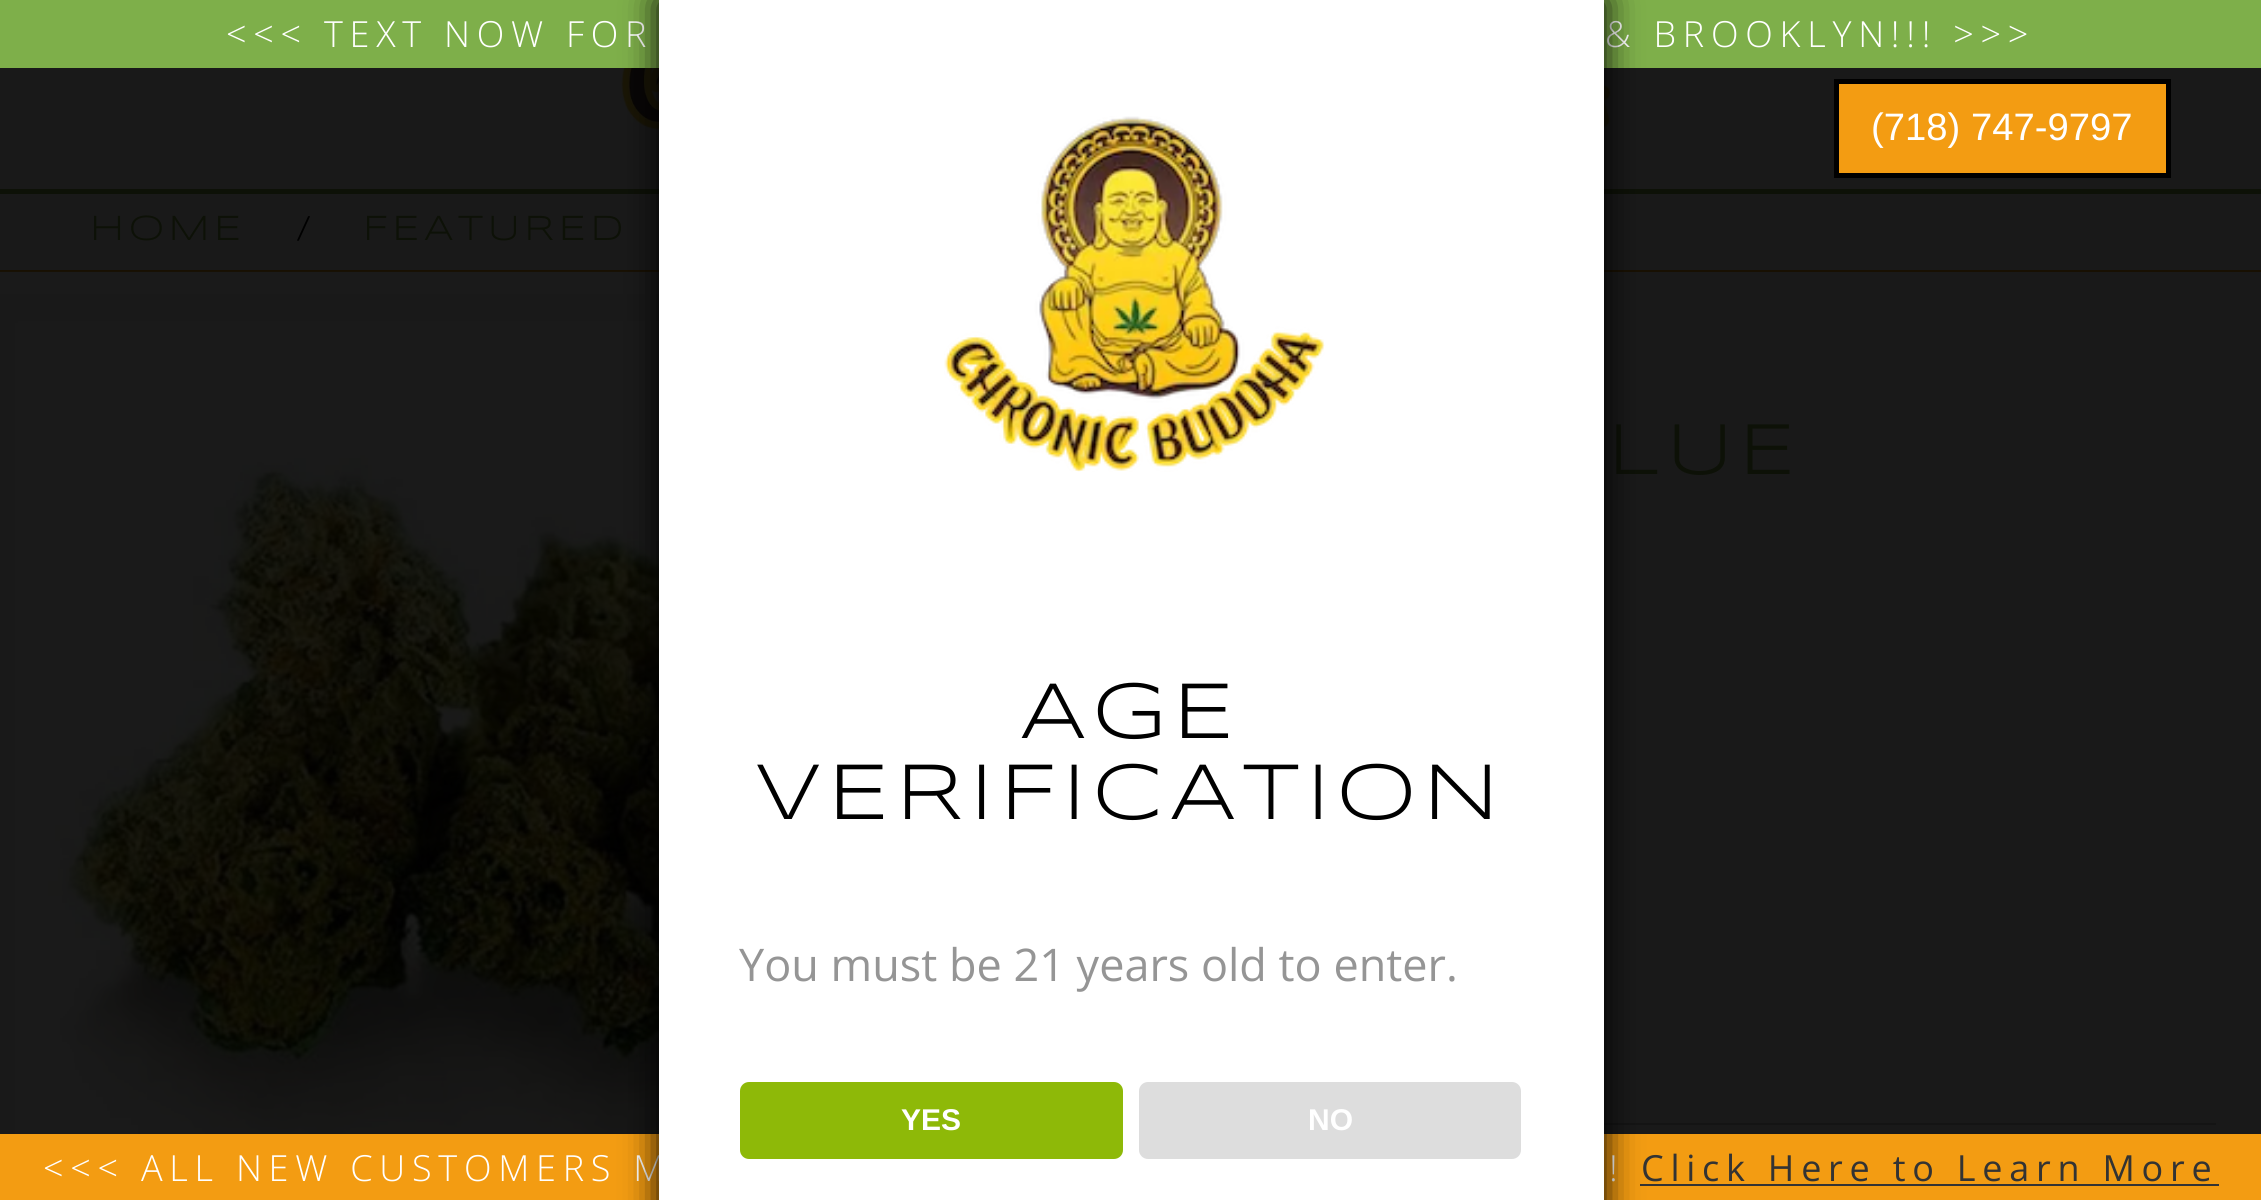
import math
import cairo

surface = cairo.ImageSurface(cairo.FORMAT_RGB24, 2261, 1200)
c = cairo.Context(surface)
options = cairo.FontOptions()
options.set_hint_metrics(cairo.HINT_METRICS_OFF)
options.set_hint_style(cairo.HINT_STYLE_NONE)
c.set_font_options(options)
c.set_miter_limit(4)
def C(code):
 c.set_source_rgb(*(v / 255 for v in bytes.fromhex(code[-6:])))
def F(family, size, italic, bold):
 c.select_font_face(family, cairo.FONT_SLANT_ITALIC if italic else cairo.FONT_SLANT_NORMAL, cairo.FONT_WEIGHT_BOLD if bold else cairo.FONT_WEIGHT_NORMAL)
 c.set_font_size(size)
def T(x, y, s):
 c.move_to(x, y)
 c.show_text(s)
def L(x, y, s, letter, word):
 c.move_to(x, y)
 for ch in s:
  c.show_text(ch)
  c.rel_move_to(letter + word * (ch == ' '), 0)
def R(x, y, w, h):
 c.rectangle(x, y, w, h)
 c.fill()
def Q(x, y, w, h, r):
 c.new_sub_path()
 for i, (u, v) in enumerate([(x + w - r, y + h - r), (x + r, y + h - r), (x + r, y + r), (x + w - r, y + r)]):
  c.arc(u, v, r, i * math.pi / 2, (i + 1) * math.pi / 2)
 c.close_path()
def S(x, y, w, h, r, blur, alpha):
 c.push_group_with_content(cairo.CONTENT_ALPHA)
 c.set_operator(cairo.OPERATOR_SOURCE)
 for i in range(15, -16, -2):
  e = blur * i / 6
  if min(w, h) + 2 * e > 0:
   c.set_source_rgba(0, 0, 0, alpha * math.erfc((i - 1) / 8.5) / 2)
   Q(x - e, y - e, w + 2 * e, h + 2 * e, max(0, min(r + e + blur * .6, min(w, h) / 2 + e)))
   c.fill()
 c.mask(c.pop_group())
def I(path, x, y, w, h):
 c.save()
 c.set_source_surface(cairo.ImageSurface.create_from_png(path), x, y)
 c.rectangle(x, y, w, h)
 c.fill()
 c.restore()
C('191919')
c.paint()
C('7eaf4a')
R(0,0,2261,68)
F('Open Sans Light',36,0,0)
C('ffffff')
L(226,47,'<<< TEXT NOW FOR',6.75,0)
L(1605,47,'& BROOKLYN!!! >>>',6.75,0)
C('f39c12')
R(0,1134,2261,66)
C('ffffff')
L(43,1181,'<<< ALL NEW CUSTOMERS M',6.75,0)
L(1609,1181,'!',6.75,0)
F('Open Sans',36,0,0)
C('333333')
L(1641,1181,'Click Here to Learn More',6.75,0)
R(1640,1184,579,2)
C('0d1107')
R(0,189,2261,5)
I('1.png',620,68,991,95)
C('f39c12')
c.rectangle(1836.5,81.5,332,94)
c.fill_preserve()
C('000000')
c.set_line_width(5)
c.stroke()
F('Liberation Sans',38.25,0,0)
C('ffffff')
T(1871,140,'(718) 747-9797')
C('181002')
R(0,270,2261,2)
F('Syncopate',36,0,0)
C('0d1107')
L(90,240,'HOME',4.5,0)
F('Syncopate',34,0,0)
C('000000')
L(295,240,'/',2,0)
F('Syncopate',36,0,0)
C('0d1107')
L(363,240,'FEATURED',4.5,0)
I('2.png',0,271,659,863)
F('Syncopate',74,0,0)
L(1608,474,'LUE',6.75,0)
C('141414')
R(1604,1123,612,2)
C('000000')
S(659,0,945,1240,0,17,1)
C('ffffff')
R(659,0,945,1200)
I('3.png',944,116,381,356)
F('Syncopate',81,0,0)
C('000000')
L(1020,738,'AGE',6.75,0)
L(755,819,'VERIFICATION',6.75,0)
F('Open Sans',45,0,0)
C('959595')
T(739,981,'You must be 21 years old to enter.')
C('8eb908')
Q(740,1082,383,77,9)
c.fill()
F('Liberation Sans',30,0,1)
C('ffffff')
T(901,1130,'YES')
C('dddddd')
Q(1139,1082,382,77,9)
c.fill()
C('ffffff')
T(1308,1130,'NO')
surface.write_to_png('o.png')
